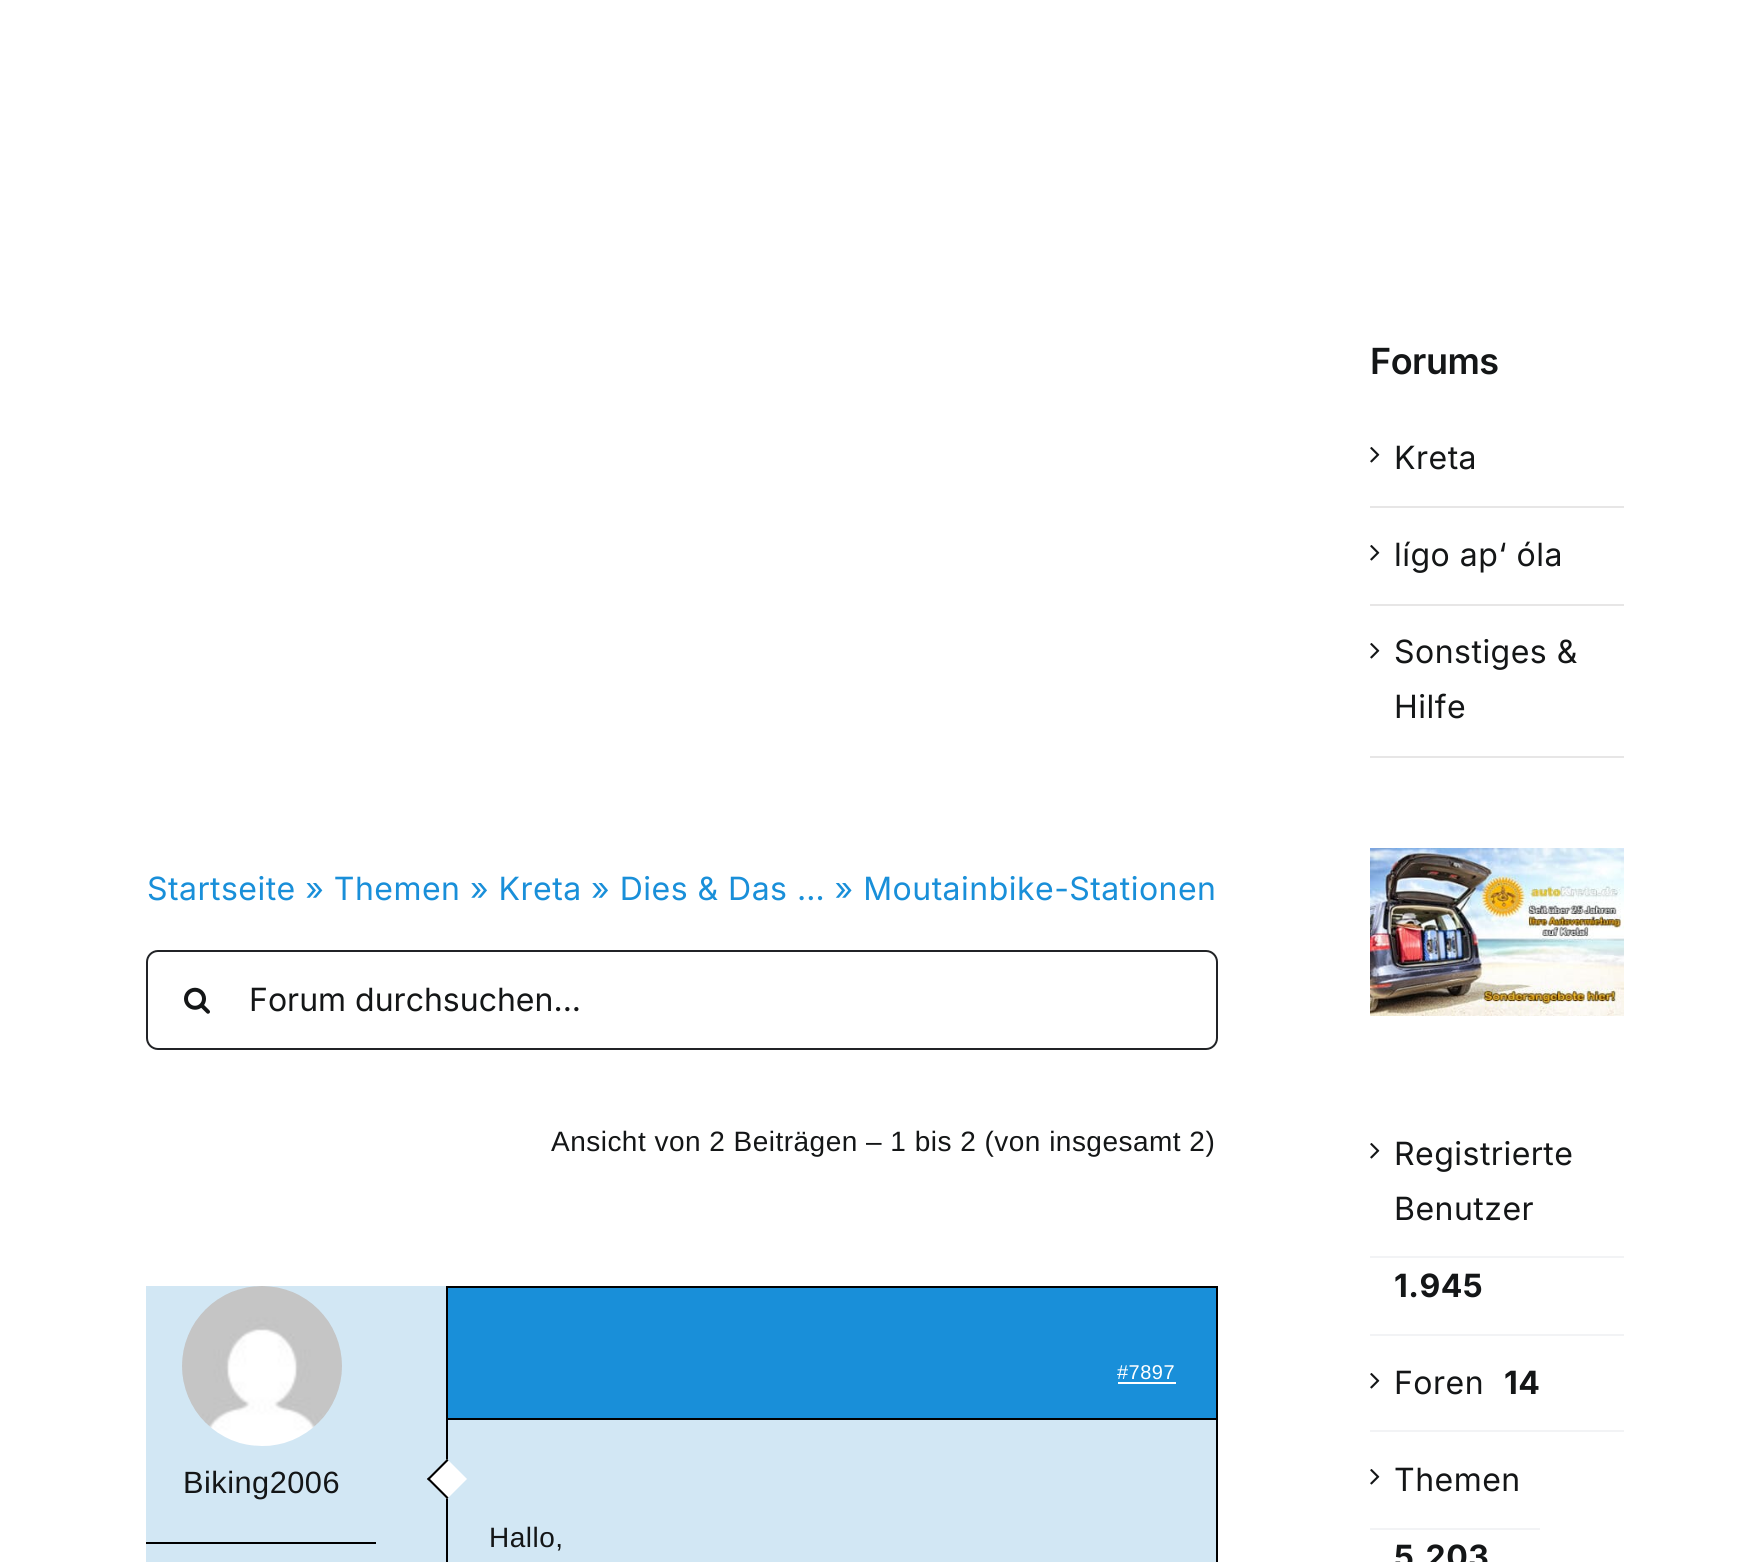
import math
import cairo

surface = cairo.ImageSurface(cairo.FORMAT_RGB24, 1740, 1562)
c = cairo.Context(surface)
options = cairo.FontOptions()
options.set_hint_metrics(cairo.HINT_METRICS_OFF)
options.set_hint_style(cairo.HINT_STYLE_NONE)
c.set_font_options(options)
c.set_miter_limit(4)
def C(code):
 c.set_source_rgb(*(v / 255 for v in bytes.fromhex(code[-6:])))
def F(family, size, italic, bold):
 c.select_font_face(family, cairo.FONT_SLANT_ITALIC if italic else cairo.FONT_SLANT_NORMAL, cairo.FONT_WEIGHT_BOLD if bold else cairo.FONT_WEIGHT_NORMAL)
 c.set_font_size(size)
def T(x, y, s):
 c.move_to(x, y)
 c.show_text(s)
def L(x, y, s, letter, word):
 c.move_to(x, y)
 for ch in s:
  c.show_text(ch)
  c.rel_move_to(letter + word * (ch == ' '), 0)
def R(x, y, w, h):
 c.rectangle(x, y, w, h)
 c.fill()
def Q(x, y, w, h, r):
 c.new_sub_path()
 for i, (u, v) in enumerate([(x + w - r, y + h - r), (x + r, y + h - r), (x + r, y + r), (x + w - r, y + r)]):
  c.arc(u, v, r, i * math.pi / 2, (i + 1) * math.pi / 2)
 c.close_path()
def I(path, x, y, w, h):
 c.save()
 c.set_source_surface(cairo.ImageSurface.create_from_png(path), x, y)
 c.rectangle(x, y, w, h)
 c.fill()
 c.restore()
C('ffffff')
c.paint()
F('Inter',32,0,0)
C('198fd9')
L(147,900,'Startseite » Themen » Kreta » Dies & Das … » Moutainbike-Stationen',.48,0)
Q(147,951,1070,98,11)
C('212326')
c.stroke()
I('1.png',184,987,26,27)
C('141617')
T(249,1011,'Forum durchsuchen...')
F('Liberation Sans',28,0,0)
L(551,1151,'Ansicht von 2 Beiträgen – 1 bis 2 (von insgesamt 2)',.48,0)
C('d2e7f4')
R(146,1286,1070,276)
I('2.png',182,1286,160,160)
F('Liberation Sans',30.75,0,0)
C('141617')
L(183,1493,'Biking2006',.48,0)
C('000000')
R(146,1542,230,2)
c.rectangle(447,1287,770,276)
c.stroke()
C('198fd9')
R(448,1288,768,130)
C('000000')
R(448,1418,768,2)
F('Liberation Sans',20,0,0)
C('ffffff')
L(1117,1379,'#7897',.48,0)
R(1118,1382,58,2)
c.new_path()
c.move_to(447,1459)
c.line_to(467,1479)
c.line_to(447,1499)
c.line_to(427,1479)
c.close_path()
c.fill()
C('000000')
c.new_path()
c.move_to(428.5,1477.5)
c.line_to(448.5,1497.5)
c.line_to(447,1499)
c.line_to(427,1479)
c.close_path()
c.fill()
c.new_path()
c.move_to(447,1459)
c.line_to(448.5,1460.5)
c.line_to(428.5,1480.5)
c.line_to(427,1479)
c.close_path()
c.fill()
F('Liberation Sans',28,0,0)
C('141617')
L(489,1547,'Hallo,',.48,0)
F('Inter SemiBold',36,0,0)
L(1370,374,'Forums',-.5,0)
C('e7e6e6')
R(1370,506,254,2)
I('3.png',1370,447,10,16)
F('Inter',32,0,0)
C('141617')
L(1394,469,'Kreta',.48,0)
C('e7e6e6')
R(1370,604,254,2)
I('3.png',1370,545,10,16)
C('141617')
L(1394,566,'lígo ap‘ óla',.48,0)
C('e7e6e6')
R(1370,756,254,2)
I('3.png',1370,643,10,16)
C('141617')
L(1394,663,'Sonstiges &',.48,0)
L(1394,718,'Hilfe',.48,0)
I('4.png',1370,848,254,168)
C('f2f3f5')
R(1370,1256,254,2)
I('3.png',1370,1143,10,16)
C('141617')
L(1394,1165,'Registrierte',.48,0)
L(1394,1220,'Benutzer',.48,0)
C('f2f3f5')
R(1370,1334,254,2)
F('Inter',32,0,1)
C('141617')
L(1394,1297,'1.945',.48,0)
I('3.png',1370,1373,10,16)
F('Inter',32,0,0)
L(1394,1394,'Foren',.48,0)
C('f2f3f5')
R(1370,1430,254,2)
F('Inter',32,0,1)
C('141617')
L(1504,1394,'14',.48,0)
C('f2f3f5')
R(1370,1528,170,2)
I('3.png',1370,1469,10,16)
F('Inter',32,0,0)
C('141617')
L(1394,1491,'Themen',.48,0)
F('Inter',32,0,1)
L(1394,1568,'5.203',.48,0)
surface.write_to_png('o.png')
